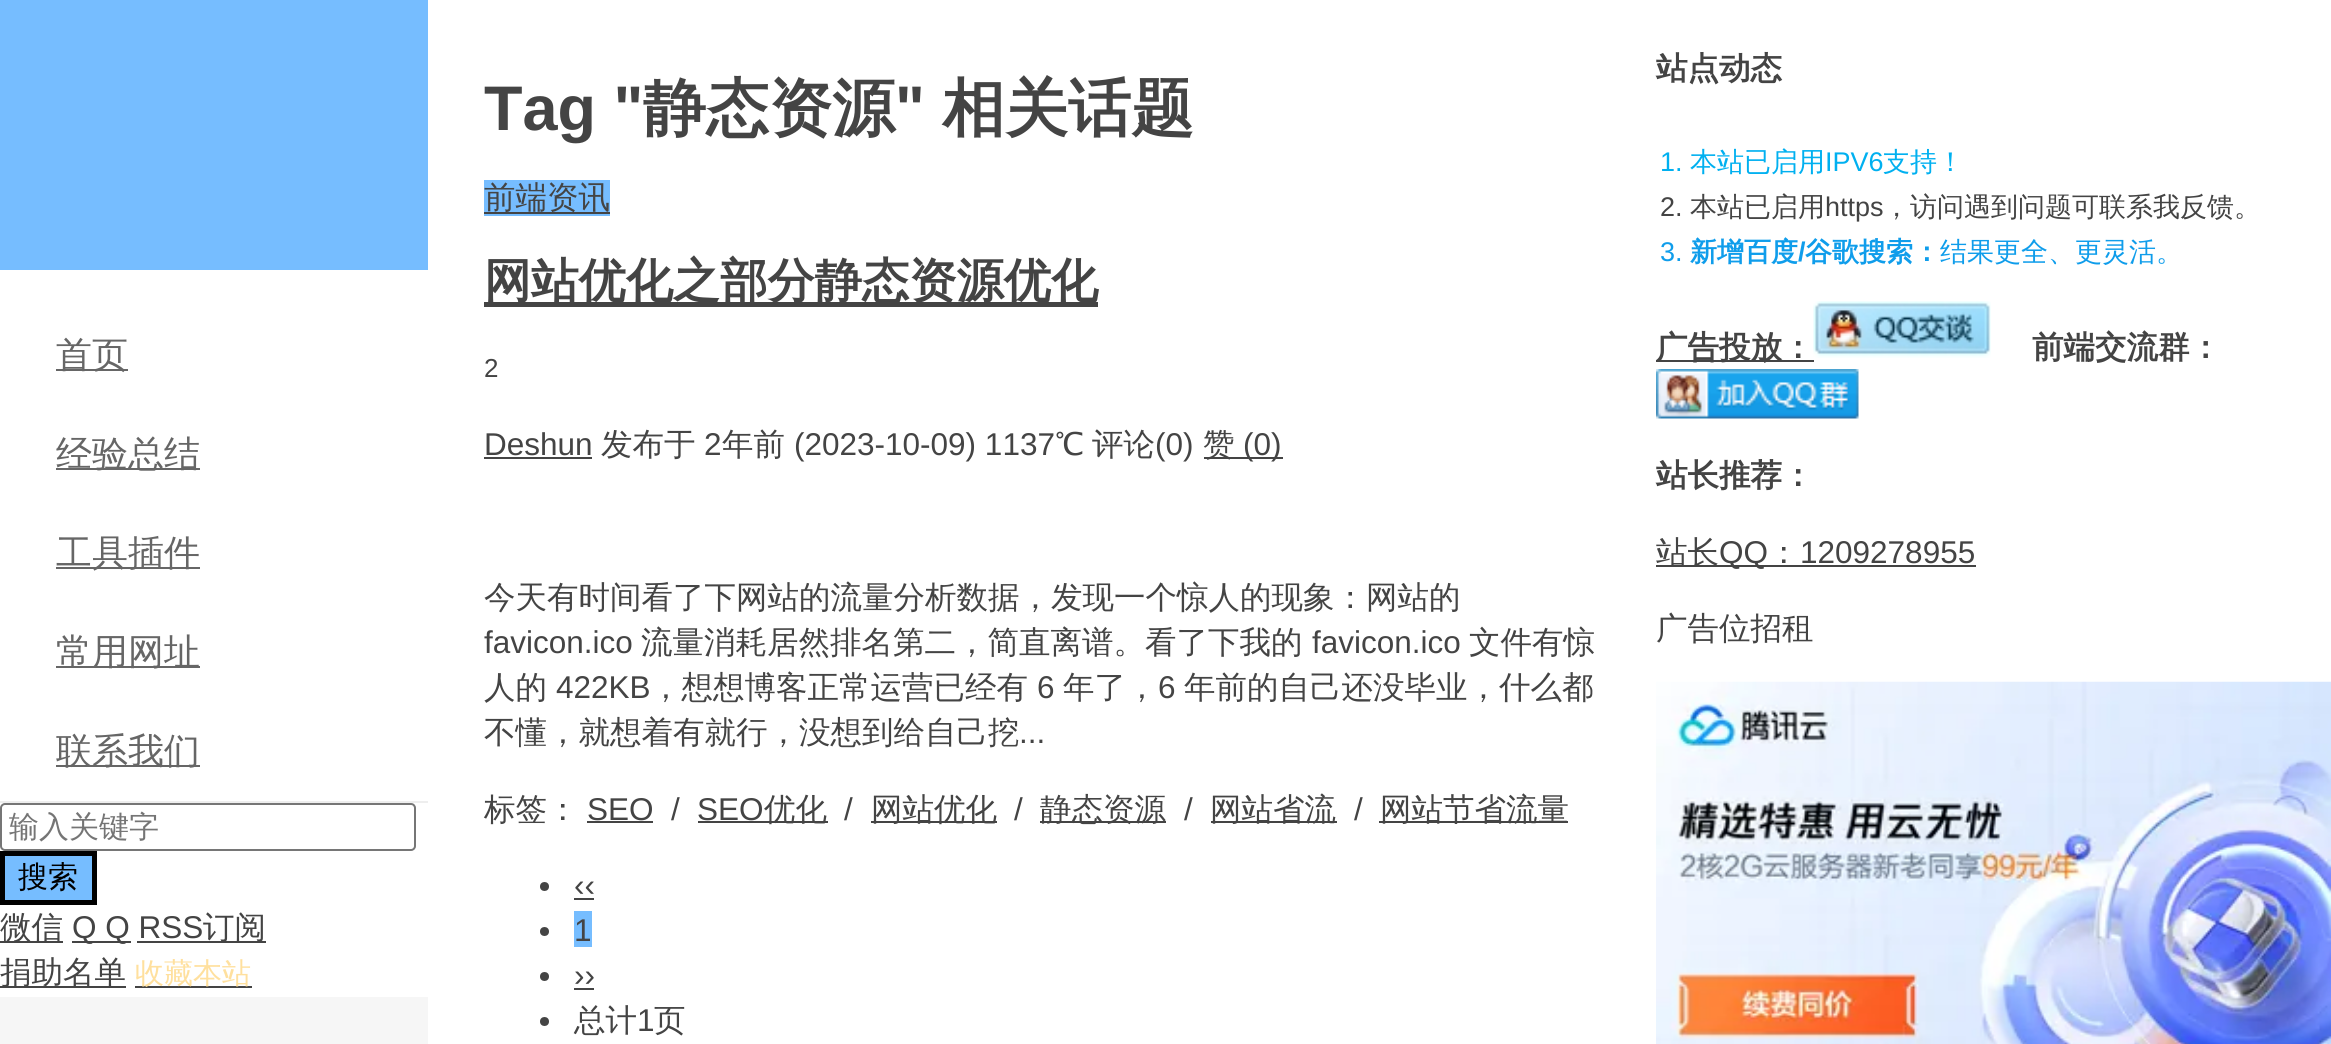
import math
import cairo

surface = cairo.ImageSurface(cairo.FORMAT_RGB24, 2331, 1044)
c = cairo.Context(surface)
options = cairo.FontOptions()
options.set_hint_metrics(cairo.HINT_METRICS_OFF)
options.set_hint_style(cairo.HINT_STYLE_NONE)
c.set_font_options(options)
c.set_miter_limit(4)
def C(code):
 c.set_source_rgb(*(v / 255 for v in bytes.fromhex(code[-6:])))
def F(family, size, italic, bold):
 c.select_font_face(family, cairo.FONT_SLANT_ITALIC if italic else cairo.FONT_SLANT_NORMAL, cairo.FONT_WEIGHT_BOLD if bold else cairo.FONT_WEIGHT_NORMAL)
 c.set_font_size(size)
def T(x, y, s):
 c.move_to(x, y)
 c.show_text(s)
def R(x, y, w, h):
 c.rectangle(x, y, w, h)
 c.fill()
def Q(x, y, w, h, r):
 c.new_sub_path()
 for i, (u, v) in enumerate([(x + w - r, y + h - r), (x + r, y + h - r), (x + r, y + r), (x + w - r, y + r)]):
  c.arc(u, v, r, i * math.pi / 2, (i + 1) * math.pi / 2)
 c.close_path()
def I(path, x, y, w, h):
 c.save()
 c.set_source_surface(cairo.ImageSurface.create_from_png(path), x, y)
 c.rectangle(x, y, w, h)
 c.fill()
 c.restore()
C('ffffff')
c.paint()
C('f6f6f6')
R(0,997,428,47)
C('76bdff')
R(0,0,428,270)
C('eeeeee')
R(0,801,428,2)
C('666666')
R(56,369,72,2)
F('WenQuanYi Zen Hei Medium',36,0,0)
T(56,367,'首页')
R(56,468,144,2)
T(56,466,'经验总结')
R(56,567,144,2)
T(56,565,'工具插件')
R(56,666,144,2)
T(56,664,'常用网址')
R(56,765,144,2)
T(56,763,'联系我们')
Q(1,804,414,46,4)
C('767676')
c.stroke()
F('WenQuanYi Zen Hei Medium',30,0,0)
C('757575')
T(9,837,'输入关键字')
C('76bdff')
c.rectangle(2.5,853.5,92,49)
c.fill_preserve()
C('000000')
c.set_line_width(5)
c.stroke()
T(18,887,'搜索')
C('444444')
R(0,941,63,2)
F('WenQuanYi Zen Hei Medium',31.5,0,0)
T(0,938,'微信')
R(72,941,59,2)
F('Liberation Sans',31.5,0,0)
T(72,938,'Q Q RSS')
R(137,941,129,2)
F('WenQuanYi Zen Hei Medium',31.5,0,0)
T(203,938,'订阅')
R(0,986,126,2)
T(0,983,'捐助名单')
R(135,986,117,2)
F('WenQuanYi Zen Hei Medium',29,0,0)
C('ffe09e')
T(135,983,'收藏本站')
F('Liberation Sans',63,0,1)
C('444444')
T(484,130,'Tag "')
F('WenQuanYi Zen Hei',63,0,1)
T(643,130,'静态资源')
F('Liberation Sans',63,0,1)
T(895,130,'"')
F('WenQuanYi Zen Hei',63,0,1)
T(942,130,'相关话题')
C('76bdff')
R(484,180,126,36)
C('444444')
R(484,212,126,2)
F('WenQuanYi Zen Hei Medium',31.5,0,0)
T(484,208,'前端资讯')
R(484,302,614,5)
F('WenQuanYi Zen Hei',47.25,0,1)
T(484,297,'网站优化之部分静态资源优化')
F('Liberation Sans',26,0,0)
T(484,377,'2')
F('Liberation Sans',31.5,0,0)
T(484,455,'Deshun')
R(484,457,108,2)
F('WenQuanYi Zen Hei Medium',31.5,0,0)
T(601,455,'发布于')
F('Liberation Sans',31.5,0,0)
T(704,455,'2')
F('WenQuanYi Zen Hei Medium',31.5,0,0)
T(722,455,'年前')
F('Liberation Sans',31.5,0,0)
T(794,455,'(2023-10-09) 1137')
F('WenQuanYi Zen Hei Medium',31.5,0,0)
T(1055,455,'℃')
T(1092,455,'评论')
F('Liberation Sans',31.5,0,0)
T(1155,455,'(0)')
R(1204,457,49,2)
F('WenQuanYi Zen Hei Medium',31.5,0,0)
T(1203,455,'赞')
F('Liberation Sans',31.5,0,0)
T(1243,455,'(0')
R(1253,457,30,2)
T(1271,455,')')
F('WenQuanYi Zen Hei Medium',31.5,0,0)
T(484,608,'今天有时间看了下网站的流量分析数据，发现一个惊人的现象：网站的')
F('Liberation Sans',31.5,0,0)
T(484,653,'favicon.ico')
F('WenQuanYi Zen Hei Medium',31.5,0,0)
T(641,653,'流量消耗居然排名第二，简直离谱。看了下我的')
F('Liberation Sans',31.5,0,0)
T(1312,653,'favicon.ico')
F('WenQuanYi Zen Hei Medium',31.5,0,0)
T(1469,653,'文件有惊')
T(484,698,'人的')
F('Liberation Sans',31.5,0,0)
T(556,698,'422KB')
F('WenQuanYi Zen Hei Medium',31.5,0,0)
T(650,698,'，想想博客正常运营已经有')
F('Liberation Sans',31.5,0,0)
T(1037,698,'6')
F('WenQuanYi Zen Hei Medium',31.5,0,0)
T(1063,698,'年了，')
F('Liberation Sans',31.5,0,0)
T(1158,698,'6')
F('WenQuanYi Zen Hei Medium',31.5,0,0)
T(1184,698,'年前的自己还没毕业，什么都')
T(484,743,'不懂，就想着有就行，没想到给自己挖')
F('Liberation Sans',31.5,0,0)
T(1019,743,'...')
F('WenQuanYi Zen Hei Medium',31.5,0,0)
T(484,820,'标签：')
F('Liberation Sans',31.5,0,0)
T(587,820,'SEO')
R(587,821,66,2)
T(671,820,'/')
T(697,820,'SEO')
R(698,821,130,2)
F('WenQuanYi Zen Hei Medium',31.5,0,0)
T(764,820,'优化')
F('Liberation Sans',31.5,0,0)
T(844,820,'/')
R(871,821,126,2)
F('WenQuanYi Zen Hei Medium',31.5,0,0)
T(871,820,'网站优化')
F('Liberation Sans',31.5,0,0)
T(1014,820,'/')
R(1040,821,126,2)
F('WenQuanYi Zen Hei Medium',31.5,0,0)
T(1040,820,'静态资源')
F('Liberation Sans',31.5,0,0)
T(1184,820,'/')
R(1211,821,126,2)
F('WenQuanYi Zen Hei Medium',31.5,0,0)
T(1210,820,'网站省流')
F('Liberation Sans',31.5,0,0)
T(1354,820,'/')
R(1379,821,189,2)
F('WenQuanYi Zen Hei Medium',31.5,0,0)
T(1380,820,'网站节省流量')
c.new_path()
c.arc(544.5,886.5,4.5,0,2 * math.pi)
c.fill()
F('Liberation Sans',31.5,0,0)
T(574,896,'‹‹')
R(574,898,20,2)
c.new_path()
c.arc(544.5,931.5,4.5,0,2 * math.pi)
c.fill()
C('76bdff')
R(574,911,18,36)
C('444444')
T(574,941,'1')
c.new_path()
c.arc(544.5,976.5,4.5,0,2 * math.pi)
c.fill()
T(574,986,'››')
R(574,988,20,2)
c.new_path()
c.arc(544.5,1021.5,4.5,0,2 * math.pi)
c.fill()
F('WenQuanYi Zen Hei Medium',31.5,0,0)
T(574,1031,'总计')
F('Liberation Sans',31.5,0,0)
T(637,1031,'1')
F('WenQuanYi Zen Hei Medium',31.5,0,0)
T(654,1031,'页')
F('WenQuanYi Zen Hei',31.5,0,1)
T(1656,79,'站点动态')
F('Liberation Sans',27,0,0)
C('00b0f0')
T(1660,171,'1.')
F('WenQuanYi Zen Hei Medium',27,0,0)
T(1690,171,'本站已启用')
F('Liberation Sans',27,0,0)
T(1825,171,'IPV6')
F('WenQuanYi Zen Hei Medium',27,0,0)
T(1883,171,'支持！')
F('Liberation Sans',27,0,0)
C('444444')
T(1660,216,'2.')
F('WenQuanYi Zen Hei Medium',27,0,0)
T(1690,216,'本站已启用')
F('Liberation Sans',27,0,0)
T(1825,216,'https')
F('WenQuanYi Zen Hei Medium',27,0,0)
T(1883,216,'，访问遇到问题可联系我反馈。')
F('Liberation Sans',27,0,0)
C('0f9deb')
T(1660,261,'3.')
F('WenQuanYi Zen Hei',27,0,1)
T(1690,261,'新增百度')
F('Liberation Sans',27,0,1)
T(1798,261,'/')
F('WenQuanYi Zen Hei',27,0,1)
T(1805,261,'谷歌搜索：')
F('WenQuanYi Zen Hei Medium',27,0,0)
T(1940,261,'结果更全、更灵活。')
C('444444')
R(1656,360,158,2)
F('WenQuanYi Zen Hei',31.5,0,1)
T(1656,358,'广告投放：')
I('1.png',1813,301,178,57)
T(2032,358,'前端交流群：')
I('2.png',1656,369,203,50)
T(1656,486,'站长推荐：')
R(1656,565,320,2)
F('WenQuanYi Zen Hei Medium',31.5,0,0)
T(1656,563,'站长')
F('Liberation Sans',31.5,0,0)
T(1719,563,'QQ')
F('WenQuanYi Zen Hei Medium',31.5,0,0)
T(1768,563,'：')
F('Liberation Sans',31.5,0,0)
T(1800,563,'1209278955')
F('WenQuanYi Zen Hei Medium',31.5,0,0)
T(1656,639,'广告位招租')
I('3.png',1656,681,675,363)
surface.write_to_png('o.png')
